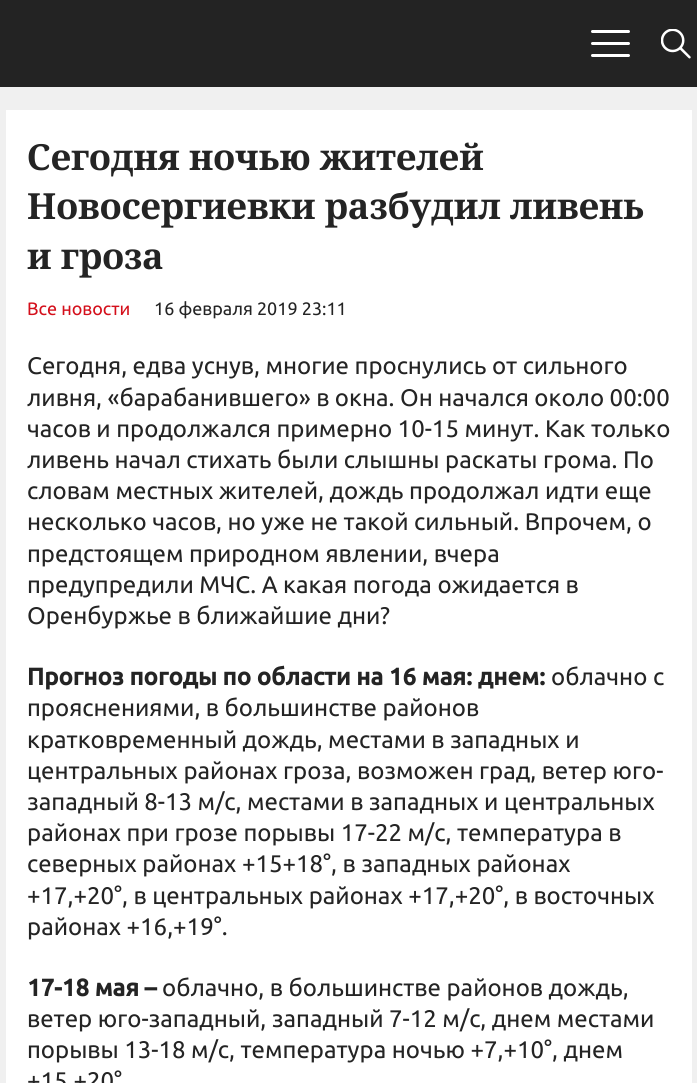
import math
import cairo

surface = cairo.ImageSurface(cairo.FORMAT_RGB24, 697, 1083)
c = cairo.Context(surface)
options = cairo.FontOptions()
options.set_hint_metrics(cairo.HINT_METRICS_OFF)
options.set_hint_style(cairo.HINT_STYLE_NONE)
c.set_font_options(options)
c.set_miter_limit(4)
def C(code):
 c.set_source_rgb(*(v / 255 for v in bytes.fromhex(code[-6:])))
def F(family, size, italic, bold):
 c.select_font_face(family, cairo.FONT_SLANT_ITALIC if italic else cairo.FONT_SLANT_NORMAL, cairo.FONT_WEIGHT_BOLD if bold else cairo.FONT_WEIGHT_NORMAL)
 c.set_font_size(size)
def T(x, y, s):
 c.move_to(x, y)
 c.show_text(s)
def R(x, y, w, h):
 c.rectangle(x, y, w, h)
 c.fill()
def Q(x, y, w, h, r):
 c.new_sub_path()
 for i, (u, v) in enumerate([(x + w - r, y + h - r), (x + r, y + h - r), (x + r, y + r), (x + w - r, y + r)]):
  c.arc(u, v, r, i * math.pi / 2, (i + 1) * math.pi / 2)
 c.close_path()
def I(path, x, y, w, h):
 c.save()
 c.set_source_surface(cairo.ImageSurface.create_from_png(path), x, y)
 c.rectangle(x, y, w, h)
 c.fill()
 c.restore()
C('f0f0f0')
c.paint()
C('232323')
R(0,0,697,87)
C('ffffff')
Q(591,42,39,3,1.5)
c.fill()
Q(591,30,39,3,1.5)
c.fill()
Q(591,54,39,3,1.5)
c.fill()
I('1.png',661,29,30,30)
R(6,110,686,973)
F('Noto Serif',36,0,1)
C('242424')
T(27,170,'Сегодня ночью жителей')
T(27,219,'Новосергиевки разбудил ливень')
T(27,269,'и гроза')
F('Ubuntu',18,0,0)
C('d40f1b')
T(27,315,'Все новости')
C('242424')
T(154,315,'16 февраля 2019 23:11')
F('Ubuntu',24,0,0)
T(27,374,'Сегодня, едва уснув, многие проснулись от сильного')
T(27,406,'ливня, «барабанившего» в окна. Он начался около 00:00')
T(27,437,'часов и продолжался примерно 10-15 минут. Как только')
T(27,468,'ливень начал стихать были слышны раскаты грома. По')
T(27,499,'словам местных жителей, дождь продолжал идти еще')
T(27,530,'несколько часов, но уже не такой сильный. Впрочем, о')
T(27,562,'предстоящем природном явлении, вчера')
T(27,593,'предупредили МЧС. А какая погода ожидается в')
T(27,624,'Оренбуржье в ближайшие дни?')
F('Ubuntu',24,0,1)
T(27,685,'Прогноз погоды по области на 16 мая: днем:')
F('Ubuntu',24,0,0)
T(551,685,'облачно с')
T(27,716,'прояснениями, в большинстве районов')
T(27,748,'кратковременный дождь, местами в западных и')
T(27,779,'центральных районах гроза, возможен град, ветер юго-')
T(27,810,'западный 8-13 м/c, местами в западных и центральных')
T(27,841,'районах при грозе порывы 17-22 м/с, температура в')
T(27,872,'северных районах +15+18°, в западных районах')
T(27,904,'+17,+20°, в центральных районах +17,+20°, в восточных')
T(27,935,'районах +16,+19°.')
F('Ubuntu',24,0,1)
T(27,996,'17-18 мая –')
F('Ubuntu',24,0,0)
T(162,996,'облачно, в большинстве районов дождь,')
T(27,1027,'ветер юго-западный, западный 7-12 м/с, днем местами')
T(27,1058,'порывы 13-18 м/с, температура ночью +7,+10°, днем')
T(27,1089,'+15,+20°')
surface.write_to_png('o.png')
